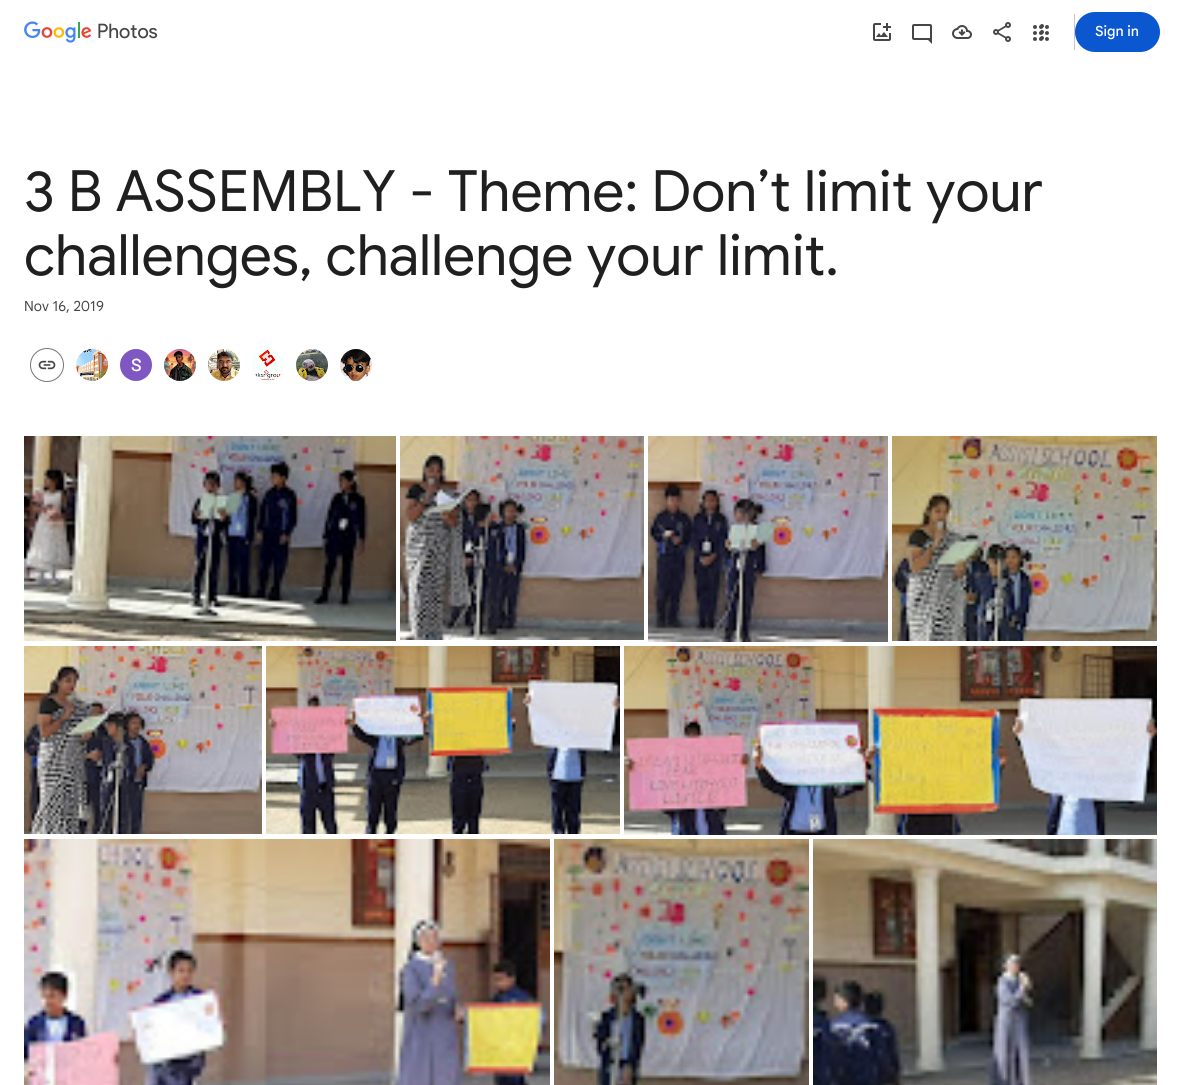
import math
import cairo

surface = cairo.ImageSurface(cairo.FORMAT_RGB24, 1196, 1085)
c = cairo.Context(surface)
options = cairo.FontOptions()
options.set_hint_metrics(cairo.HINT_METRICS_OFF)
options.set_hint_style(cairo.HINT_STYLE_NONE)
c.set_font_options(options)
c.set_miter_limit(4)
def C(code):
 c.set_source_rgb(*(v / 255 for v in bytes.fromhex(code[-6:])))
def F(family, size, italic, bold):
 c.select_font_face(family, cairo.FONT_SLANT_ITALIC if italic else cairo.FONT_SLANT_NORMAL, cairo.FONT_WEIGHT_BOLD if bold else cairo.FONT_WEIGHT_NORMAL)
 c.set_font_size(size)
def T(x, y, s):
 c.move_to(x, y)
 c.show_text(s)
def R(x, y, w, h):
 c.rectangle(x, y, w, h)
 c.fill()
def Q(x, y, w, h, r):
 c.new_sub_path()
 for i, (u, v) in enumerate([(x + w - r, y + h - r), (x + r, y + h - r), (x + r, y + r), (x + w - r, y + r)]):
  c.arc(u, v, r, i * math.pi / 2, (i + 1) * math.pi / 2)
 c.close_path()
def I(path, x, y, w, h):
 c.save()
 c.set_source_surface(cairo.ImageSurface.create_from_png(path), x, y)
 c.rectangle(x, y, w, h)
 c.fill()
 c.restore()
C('ffffff')
c.paint()
I('1.png',24,21,68,22)
F('Product Sans',20,0,0)
C('444746')
T(97,38,'Photos')
I('2.png',873,23,18,18)
I('3.png',912,24,20,20)
I('4.png',952,25,20,14)
I('5.png',993,22,18,20)
I('6.png',1040,24,4,16)
C('c4c7c5')
R(1074,14,1,36)
F('Google Sans',57,0,0)
C('1f1f1f')
T(24,211,'3 B ASSEMBLY - Theme: Don’t limit your')
T(24,275,'challenges, challenge your limit.')
F('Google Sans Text',14,0,0)
C('444746')
T(24,311,'Nov 16, 2019')
c.new_path()
c.arc(47,365,16.5,0,2 * math.pi)
C('747775')
c.set_line_width(1)
c.stroke()
I('7.png',38,360,18,10)
I('8.png',76,349,32,32)
I('9.png',120,349,32,32)
I('10.png',164,349,32,32)
I('11.png',208,349,32,32)
I('12.png',252,349,32,32)
I('13.png',296,349,32,32)
I('14.png',340,349,32,32)
I('15.png',24,436,372,205)
I('16.png',400,436,244,204)
I('17.png',648,436,240,206)
I('18.png',892,436,265,205)
I('19.png',24,646,238,188)
I('20.png',266,646,354,188)
I('21.png',624,646,533,189)
I('22.png',24,839,526,246)
I('23.png',554,839,255,246)
I('24.png',813,839,344,246)
I('25.png',1033,25,16,16)
C('0b57d0')
Q(1075,12,85,40,20)
c.fill()
F('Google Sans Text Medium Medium',14,0,0)
C('ffffff')
T(1095,36,'Sign in')
surface.write_to_png('o.png')
